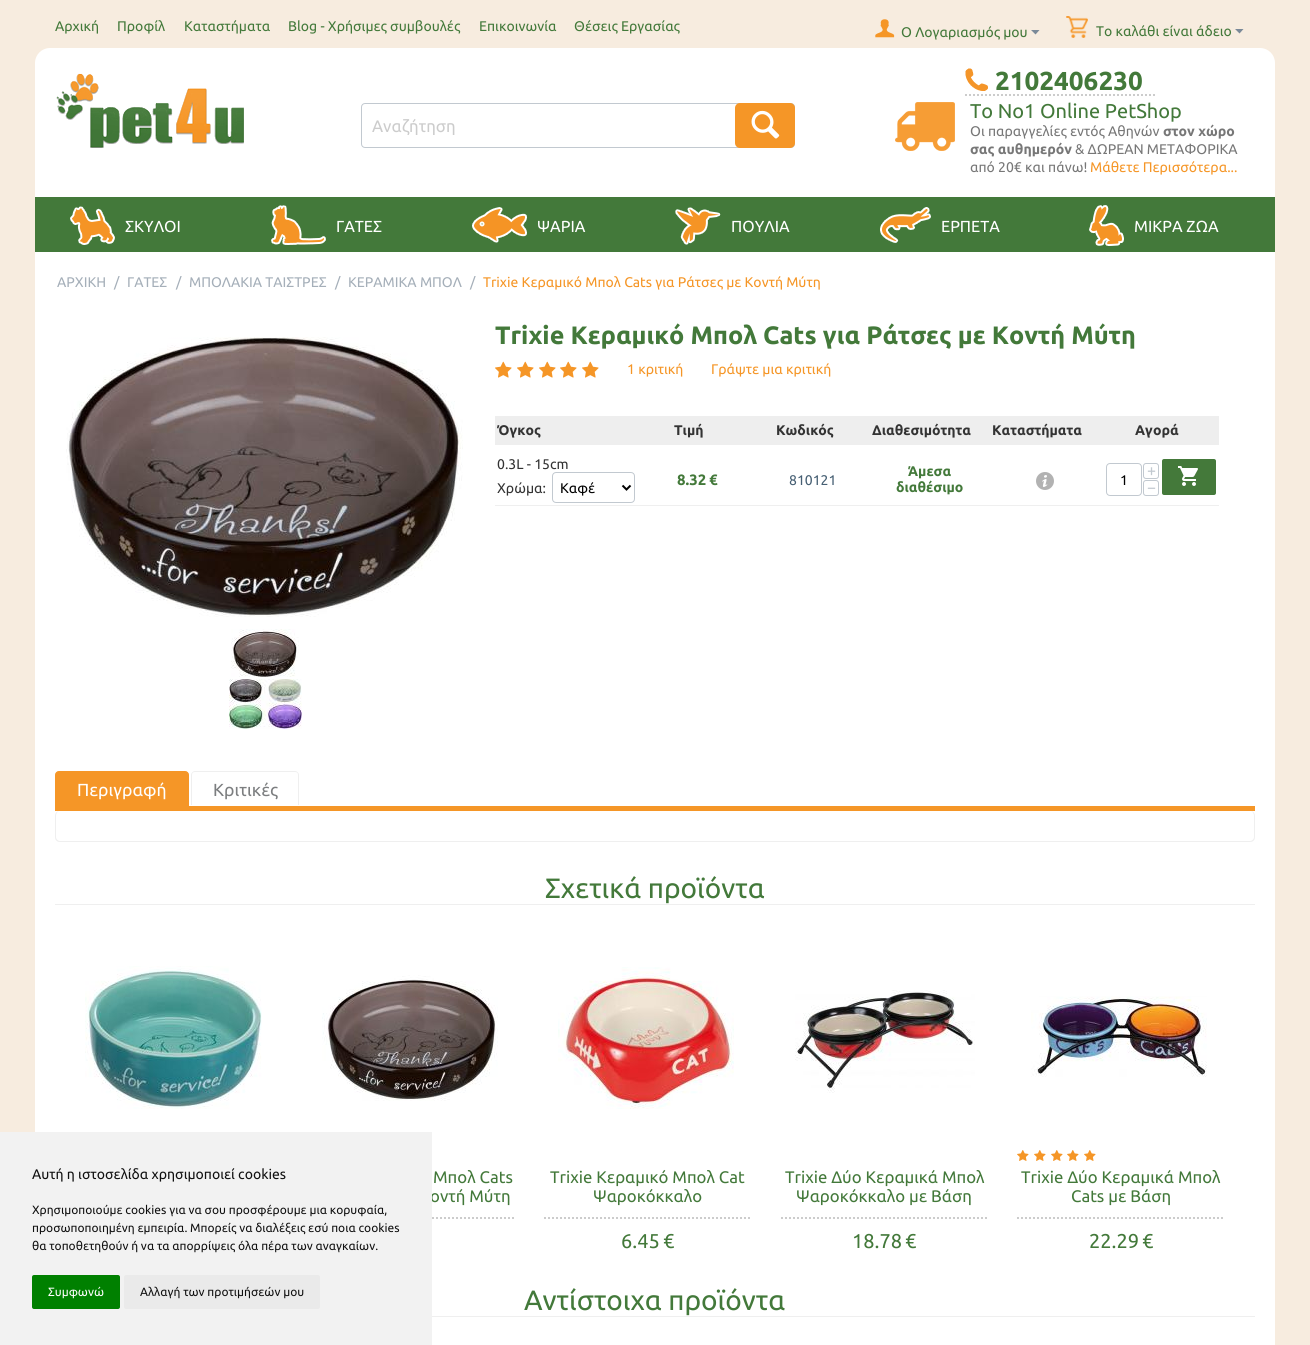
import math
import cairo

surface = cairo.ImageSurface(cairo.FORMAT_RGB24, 1310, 1345)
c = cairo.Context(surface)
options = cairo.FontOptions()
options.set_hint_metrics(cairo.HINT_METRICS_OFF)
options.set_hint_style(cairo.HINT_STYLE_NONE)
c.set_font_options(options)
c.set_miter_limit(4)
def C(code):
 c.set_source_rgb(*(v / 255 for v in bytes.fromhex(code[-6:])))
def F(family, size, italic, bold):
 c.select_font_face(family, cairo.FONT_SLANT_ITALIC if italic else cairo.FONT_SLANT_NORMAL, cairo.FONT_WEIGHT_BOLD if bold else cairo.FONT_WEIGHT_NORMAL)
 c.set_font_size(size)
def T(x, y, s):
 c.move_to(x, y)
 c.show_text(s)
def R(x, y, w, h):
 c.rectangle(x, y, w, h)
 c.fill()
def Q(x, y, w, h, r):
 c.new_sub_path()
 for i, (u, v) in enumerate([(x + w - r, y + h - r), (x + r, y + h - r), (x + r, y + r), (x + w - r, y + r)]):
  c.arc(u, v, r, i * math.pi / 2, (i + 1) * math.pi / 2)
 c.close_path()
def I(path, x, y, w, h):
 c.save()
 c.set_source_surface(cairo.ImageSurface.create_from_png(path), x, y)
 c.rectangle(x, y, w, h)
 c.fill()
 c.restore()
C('f7ecdf')
c.paint()
F('Ubuntu',14,0,0)
C('43793a')
T(55,31,'Αρχική')
T(117,31,'Προφίλ')
T(184,31,'Καταστήματα')
T(288,31,'Blog - Χρήσιμες συμβουλές')
T(479,31,'Επικοινωνία')
T(574,31,'Θέσεις Εργασίας')
I('1.png',875,19,20,19)
T(901,37,'Ο Λογαριασμός μου')
C('7a8998')
c.new_path()
c.move_to(1035.5,34.5)
c.line_to(1031,30)
c.line_to(1039.5,30)
c.close_path()
c.fill()
I('2.png',1066,16,22,22)
C('43793a')
T(1096,36,'Το καλάθι είναι άδειο')
C('7a8998')
c.new_path()
c.move_to(1239.5,33.5)
c.line_to(1235,29)
c.line_to(1243.5,29)
c.close_path()
c.fill()
C('ffffff')
Q(35,48,1240,204,15)
c.fill()
I('3.png',56,73,188,75)
Q(361.5,103.5,433,44,3.5)
C('c2c9d0')
c.set_line_width(1)
c.stroke()
c.save()
c.rectangle(372,116,392,19)
c.clip()
F('Ubuntu',16.75,0,0)
C('cccccc')
T(372,132,'Αναζήτηση')
c.restore()
C('f59627')
Q(735,103,60,45,5)
c.fill()
I('4.png',751,110,29,29)
I('5.png',965,68,23,23)
c.new_path()
c.move_to(965,95)
c.line_to(1155,95)
C('cccccc')
c.set_line_width(2)
c.set_dash([2,2])
c.stroke()
F('Ubuntu',26,0,1)
C('43793a')
T(995,90,'2102406230')
I('6.png',895,102,60,49)
F('Ubuntu',20,0,0)
T(970,118,'To No1 Online PetShop')
F('Ubuntu',14,0,0)
C('777777')
T(970,136,'Oι παραγγελίες εντός Αθηνών')
F('Ubuntu',14,0,1)
T(1163,136,'στον χώρο')
T(970,154,'σας αυθημερόν')
F('Ubuntu',14,0,0)
T(1075,154,'& ΔΩΡΕΑΝ ΜΕΤΑΦΟΡΙΚΑ')
T(970,172,'από 20€ και πάνω!')
C('f59627')
T(1090,172,'Μάθετε Περισσότερα...')
C('43793a')
R(35,197,1240,55)
I('7.png',70,206,45,39)
F('Ubuntu',16,0,0)
C('ffffff')
T(125,232,'ΣΚΥΛΟΙ')
I('8.png',271,205,55,40)
T(336,232,'ΓΑΤΕΣ')
I('9.png',472,207,55,36)
T(537,232,'ΨΑΡΙΑ')
I('10.png',675,207,46,38)
T(731,232,'ΠΟΥΛΙΑ')
I('11.png',880,207,51,36)
T(941,232,'ΕΡΠΕΤΑ')
I('12.png',1089,205,35,41)
T(1134,232,'ΜΙΚΡΑ ΖΩΑ')
R(35,252,1240,1093)
F('Ubuntu',14,0,0)
C('a5afb9')
T(57,287,'ΑΡΧΙΚΗ')
T(114,287,'/')
T(127,287,'ΓΑΤΕΣ')
T(176,287,'/')
T(189,287,'ΜΠΟΛΑΚΙΑ ΤΑΙΣΤΡΕΣ')
T(335,287,'/')
T(348,287,'ΚΕΡΑΜΙΚΑ ΜΠΟΛ')
T(470,287,'/')
C('f59627')
T(483,287,'Trixie Κεραμικό Μπολ Cats για Ράτσες με Κοντή Μύτη')
I('13.png',66,337,397,280)
I('14.png',231,629,68,48)
I('15.png',229,679,73,50)
F('Ubuntu',25.2,0,1)
C('43793a')
T(495,344,'Trixie Κεραμικό Μπολ Cats για Ράτσες με Κοντή Μύτη')
I('16.png',495,361,17,17)
I('16.png',517,361,17,17)
I('16.png',539,361,17,17)
I('16.png',560,361,17,17)
I('16.png',582,361,17,17)
F('Ubuntu',14,0,0)
C('f59627')
T(627,374,'1 κριτική')
T(711,374,'Γράψτε μια κριτική')
C('eeeeee')
R(495,416,724,29)
F('Ubuntu',14,0,1)
C('333333')
T(497,435,'Όγκος')
T(674,435,'Τιμή')
T(776,435,'Κωδικός')
T(872,435,'Διαθεσιμότητα')
T(992,435,'Καταστήματα')
T(1135,435,'Αγορά')
C('efefef')
R(495,505,724,1)
F('Ubuntu',14,0,0)
C('333333')
T(497,469,'0.3L - 15cm')
T(497,493,'Χρώμα:')
Q(552.5,472.5,82,30,3.5)
C('c2c9d0')
c.set_line_width(1)
c.set_dash([])
c.stroke()
c.new_path()
c.move_to(622.5,485.5)
c.line_to(626.5,489.5)
c.line_to(630.5,485.5)
C('000000')
c.set_line_width(2)
c.stroke()
T(560,493,'Καφέ')
F('Ubuntu',15,0,1)
C('43793a')
T(677,485,'8.32')
T(709,485,'€')
F('Ubuntu',14,0,0)
C('465f73')
T(789,485,'810121')
F('Ubuntu',14,0,1)
C('43793a')
T(908,476,'Άμεσα')
T(896,492,'διαθέσιμο')
I('17.png',1036,472,18,18)
Q(1143.5,463.5,15,15,2.5)
C('c2c9d0')
c.set_line_width(1)
c.stroke()
F('Ubuntu',16,0,0)
T(1147,476,'+')
Q(1106.5,463.5,35,32,3.5)
c.stroke()
F('Ubuntu',14,0,0)
C('000000')
T(1120,485,'1')
Q(1143.5,480.5,15,15,2.5)
C('c2c9d0')
c.stroke()
F('Ubuntu',16,0,0)
T(1147,493,'−')
C('44793a')
Q(1162,459,54,36,2)
c.fill()
I('18.png',1178,466,20,20)
C('f59627')
R(55,806,1200,5)
c.new_path()
c.move_to(59,771.5)
c.line_to(185,771.5)
c.curve_to(187,771.5,188.5,773,188.5,775)
c.line_to(188.5,805.5)
c.line_to(55.5,805.5)
c.line_to(55.5,775)
c.curve_to(55.5,773,57,771.5,59,771.5)
c.close_path()
c.fill_preserve()
c.stroke()
F('Ubuntu',17.5,0,0)
C('ffffff')
T(77,796,'Περιγραφή')
C('efefef')
c.set_fill_rule(cairo.FILL_RULE_EVEN_ODD)
c.new_path()
c.move_to(195,771)
c.line_to(295,771)
c.curve_to(297,771,299,773,299,775)
c.line_to(299,805)
c.line_to(191,805)
c.line_to(191,775)
c.curve_to(191,773,193,771,195,771)
c.close_path()
c.move_to(195,772)
c.line_to(295,772)
c.curve_to(297,772,298,773,298,775)
c.line_to(298,805)
c.line_to(192,805)
c.line_to(192,775)
c.curve_to(192,773,193,772,195,772)
c.close_path()
c.fill()
C('7c7e80')
T(213,796,'Κριτικές')
C('efefef')
c.new_path()
c.move_to(60,811)
c.line_to(1250,811)
c.curve_to(1253,811,1255,813,1255,816)
c.line_to(1255,837)
c.curve_to(1255,840,1253,842,1250,842)
c.line_to(60,842)
c.curve_to(57,842,55,840,55,837)
c.line_to(55,816)
c.curve_to(55,813,57,811,60,811)
c.close_path()
c.move_to(60,811)
c.line_to(1250,811)
c.curve_to(1252,811,1254,813,1254,816)
c.line_to(1254,837)
c.curve_to(1254,839,1252,841,1250,841)
c.line_to(60,841)
c.curve_to(58,841,56,839,56,837)
c.line_to(56,816)
c.curve_to(56,813,58,811,60,811)
c.close_path()
c.fill()
R(55,904,1200,1)
F('Ubuntu',28,0,0)
C('43793a')
T(545,898,'Σχετικά προϊόντα')
I('19.png',85,966,177,143)
I('20.png',322,975,176,126)
F('Ubuntu',16.75,0,0)
T(433,1183,'Μπολ Cats')
T(430,1202,'οντή Μύτη')
c.new_path()
c.move_to(308,1218)
c.line_to(516,1218)
C('cccccc')
c.set_line_width(2)
c.set_dash([2,2])
c.stroke()
I('21.png',558,967,176,142)
C('43793a')
T(550,1183,'Trixie Κεραμικό Μπολ Cat')
T(593,1202,'Ψαροκόκκαλο')
c.new_path()
c.move_to(544,1218)
c.line_to(752,1218)
C('cccccc')
c.stroke()
F('Ubuntu',20,0,0)
C('43793a')
T(621,1248,'6.45')
T(663,1248,'€')
I('22.png',795,990,180,103)
F('Ubuntu',16.75,0,0)
T(785,1183,'Trixie Δύο Κεραμικά Μπολ')
T(796,1202,'Ψαροκόκκαλο με Βάση')
c.new_path()
c.move_to(781,1218)
c.line_to(989,1218)
C('cccccc')
c.stroke()
F('Ubuntu',20,0,0)
C('43793a')
T(852,1248,'18.78')
T(905,1248,'€')
I('23.png',1031,996,176,81)
I('24.png',1017,1150,12,11)
I('24.png',1034,1150,12,11)
I('24.png',1051,1150,12,11)
I('24.png',1067,1150,12,11)
I('24.png',1084,1150,12,11)
F('Ubuntu',16.75,0,0)
T(1021,1183,'Trixie Δύο Κεραμικά Μπολ')
T(1071,1202,'Cats με Βάση')
c.new_path()
c.move_to(1017,1218)
c.line_to(1225,1218)
C('cccccc')
c.stroke()
F('Ubuntu',20,0,0)
C('43793a')
T(1089,1248,'22.29')
T(1142,1248,'€')
C('efefef')
R(432,1316,823,1)
F('Ubuntu',28,0,0)
C('43793a')
T(524,1310,'Αντίστοιχα προϊόντα')
C('f2f2f2')
R(0,1132,432,213)
F('Ubuntu',14,0,0)
C('111111')
T(32,1179,'Αυτή η ιστοσελίδα χρησιμοποιεί cookies')
F('Ubuntu',12,0,0)
T(32,1214,'Χρησιμοποιούμε cookies για να σου προσφέρουμε μια κορυφαία,')
T(32,1232,'προσωποποιημένη εμπειρία. Μπορείς να διαλέξεις εσύ ποια cookies')
T(32,1250,'θα τοποθετηθούν ή να τα απορρίψεις όλα πέρα των αναγκαίων.')
C('008000')
Q(32,1275,88,34,2)
c.fill()
C('ffffff')
T(48,1296,'Συμφωνώ')
C('eaeaea')
Q(124,1275,196,34,2)
c.fill()
C('111111')
T(140,1296,'Αλλαγή των προτιμήσεών μου')
surface.write_to_png('o.png')
